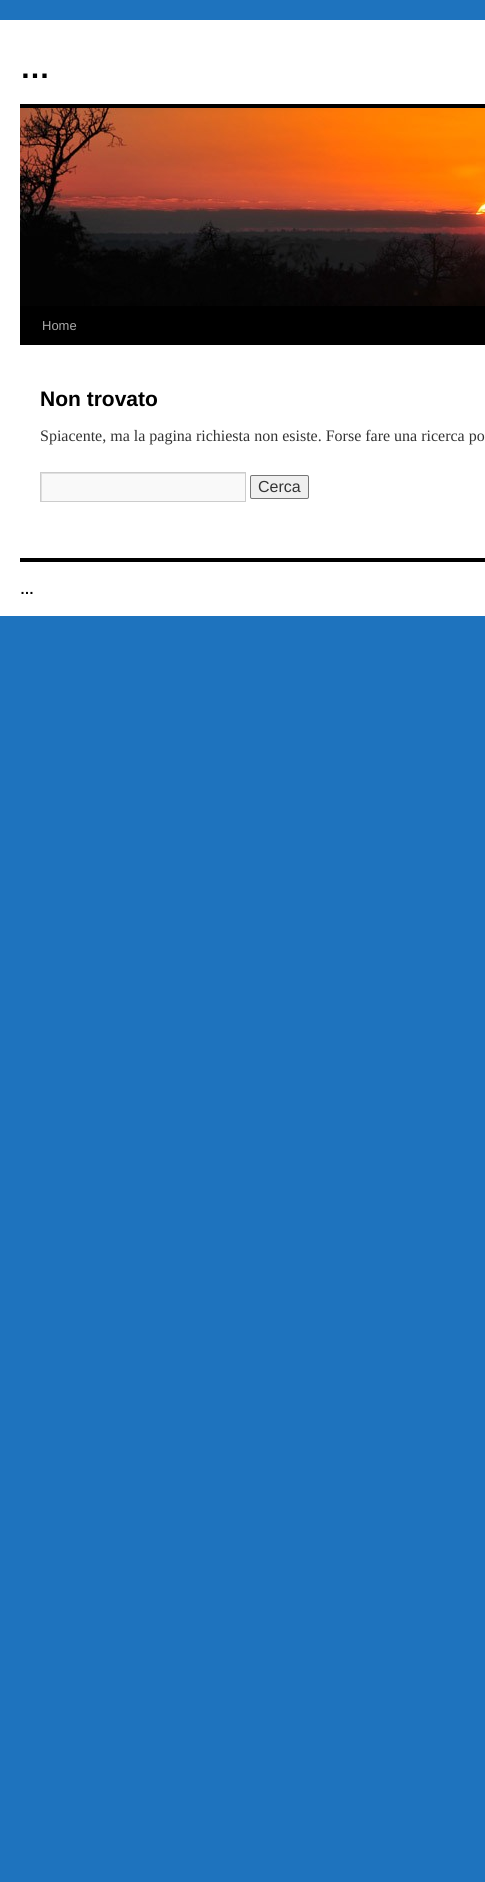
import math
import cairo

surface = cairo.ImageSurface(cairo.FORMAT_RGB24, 485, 1882)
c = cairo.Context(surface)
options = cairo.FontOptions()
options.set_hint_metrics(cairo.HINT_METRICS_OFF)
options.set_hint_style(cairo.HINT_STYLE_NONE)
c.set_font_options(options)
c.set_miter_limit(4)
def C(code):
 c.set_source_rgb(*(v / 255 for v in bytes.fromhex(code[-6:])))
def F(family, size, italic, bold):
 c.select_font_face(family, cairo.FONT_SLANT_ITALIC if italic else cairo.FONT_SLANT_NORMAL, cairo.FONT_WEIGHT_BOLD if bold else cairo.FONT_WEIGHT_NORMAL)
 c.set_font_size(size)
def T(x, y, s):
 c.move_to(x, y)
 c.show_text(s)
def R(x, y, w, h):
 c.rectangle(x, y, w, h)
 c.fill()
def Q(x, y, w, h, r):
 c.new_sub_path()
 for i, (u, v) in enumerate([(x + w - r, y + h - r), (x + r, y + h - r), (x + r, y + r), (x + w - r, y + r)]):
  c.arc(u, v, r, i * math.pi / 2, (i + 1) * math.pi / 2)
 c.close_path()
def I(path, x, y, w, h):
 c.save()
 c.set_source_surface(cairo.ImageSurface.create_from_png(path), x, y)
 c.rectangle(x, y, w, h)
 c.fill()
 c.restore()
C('1e73be')
c.paint()
C('ffffff')
R(0,20,485,596)
F('Liberation Sans',30,0,1)
C('000000')
T(20,78,'…')
R(20,104,465,4)
R(20,306,465,39)
I('1.png',20,108,465,198)
F('Liberation Sans',13,0,0)
C('aaaaaa')
T(42,330,'Home')
F('Liberation Sans',21,0,1)
C('000000')
T(40,406,'Non trovato')
F('Liberation Serif',16,0,0)
C('333333')
T(40,441,'Spiacente, ma la pagina richiesta non esiste. Forse fare una ricerca po')
C('f9f9f9')
R(42,474,203,27)
c.save()
c.rectangle(41,473,204,28)
c.clip()
C('e0e0e0')
c.set_fill_rule(cairo.FILL_RULE_EVEN_ODD)
c.new_path()
c.move_to(-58,374)
c.line_to(344,374)
c.line_to(344,600)
c.line_to(-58,600)
c.close_path()
c.move_to(42,474)
c.line_to(246,474)
c.line_to(246,502)
c.line_to(42,502)
c.close_path()
c.fill()
c.restore()
c.rectangle(40.5,472.5,205,29)
C('cccccc')
c.set_line_width(1)
c.stroke()
C('efefef')
Q(250.5,475.5,58,23,1.5)
c.fill_preserve()
C('767676')
c.stroke()
F('Liberation Sans',16,0,0)
C('333333')
T(258,492,'Cerca')
C('000000')
R(20,558,465,4)
F('Liberation Sans',14,0,1)
T(20,594,'…')
surface.write_to_png('o.png')
